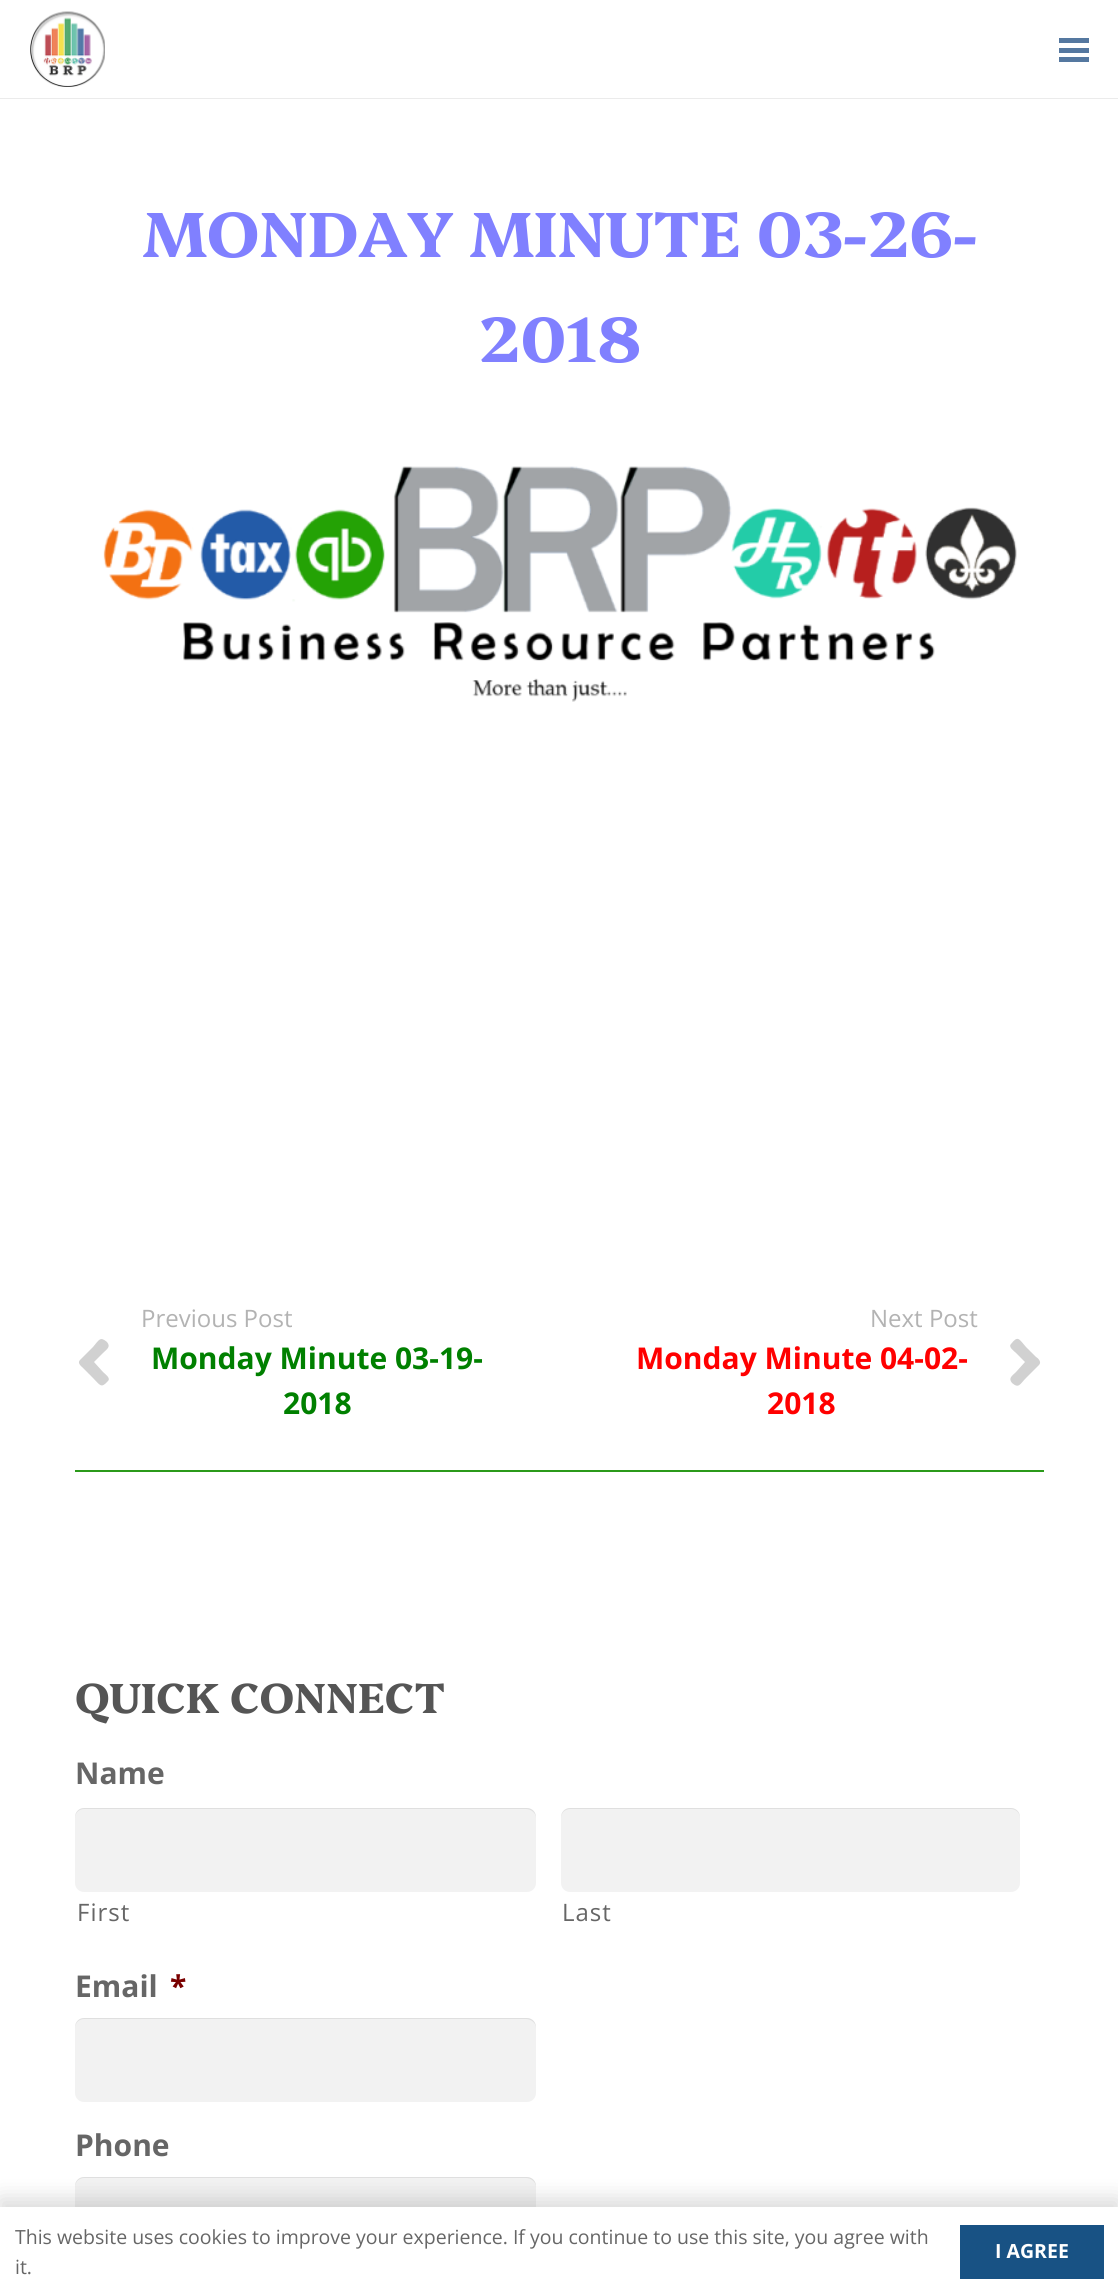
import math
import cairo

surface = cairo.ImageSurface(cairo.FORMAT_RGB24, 1118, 2296)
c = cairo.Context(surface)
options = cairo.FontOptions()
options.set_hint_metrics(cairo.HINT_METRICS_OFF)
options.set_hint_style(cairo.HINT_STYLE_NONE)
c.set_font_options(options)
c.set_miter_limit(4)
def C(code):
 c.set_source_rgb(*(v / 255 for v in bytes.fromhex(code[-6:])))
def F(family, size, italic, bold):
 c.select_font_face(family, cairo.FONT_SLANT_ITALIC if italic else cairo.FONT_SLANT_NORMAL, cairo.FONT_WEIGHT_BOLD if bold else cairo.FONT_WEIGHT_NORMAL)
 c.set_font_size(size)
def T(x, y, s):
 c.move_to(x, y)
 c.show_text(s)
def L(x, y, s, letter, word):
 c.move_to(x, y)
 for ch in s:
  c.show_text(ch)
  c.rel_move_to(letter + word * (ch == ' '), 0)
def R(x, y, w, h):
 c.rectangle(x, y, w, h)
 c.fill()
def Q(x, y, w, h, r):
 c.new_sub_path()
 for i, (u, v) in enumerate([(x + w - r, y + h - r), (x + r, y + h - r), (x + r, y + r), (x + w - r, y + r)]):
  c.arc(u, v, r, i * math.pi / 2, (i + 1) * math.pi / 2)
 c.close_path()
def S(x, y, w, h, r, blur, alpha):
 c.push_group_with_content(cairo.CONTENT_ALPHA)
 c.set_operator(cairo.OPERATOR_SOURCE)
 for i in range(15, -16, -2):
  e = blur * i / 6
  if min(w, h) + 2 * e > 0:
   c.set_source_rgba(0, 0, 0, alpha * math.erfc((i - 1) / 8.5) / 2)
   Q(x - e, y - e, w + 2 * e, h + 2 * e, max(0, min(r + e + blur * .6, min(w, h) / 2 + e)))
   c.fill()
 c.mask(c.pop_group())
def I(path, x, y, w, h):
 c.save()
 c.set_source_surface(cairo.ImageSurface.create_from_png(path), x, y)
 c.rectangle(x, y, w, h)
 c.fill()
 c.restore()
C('ffffff')
c.paint()
C('ebebeb')
R(0,98,1118,1)
I('1.png',30,11,75,76)
C('5578a0')
R(1059,48,30,5)
R(1059,38,30,5)
R(1059,57,30,5)
F('Platypi',63.75,0,1)
C('8080ff')
T(143,257,'MONDAY MINUTE 03-26-')
T(478,362,'2018')
I('2.png',103,466,914,236)
F('Open Sans',24,0,0)
C('b3b3b3')
T(141,1327,'Previous Post')
C('d1d1d1')
c.new_path()
c.move_to(80,1360)
c.line_to(93,1347)
c.curve_to(99,1340,100,1336,107,1342)
c.curve_to(111,1347,107,1349,103,1353)
c.line_to(94,1362)
c.line_to(103,1372)
c.curve_to(105,1374,111,1378,108,1381)
c.curve_to(101,1389,100,1385,93,1378)
c.line_to(83,1368)
c.curve_to(81,1366,77,1363,80,1360)
c.close_path()
c.fill()
F('Open Sans',30,0,1)
C('008000')
T(151,1369,'Monday Minute 03-19-')
T(283,1414,'2018')
F('Open Sans',24,0,0)
C('b3b3b3')
T(870,1327,'Next Post')
F('Open Sans',30,0,1)
C('ff0000')
T(636,1369,'Monday Minute 04-02-')
T(767,1414,'2018')
C('d1d1d1')
c.new_path()
c.move_to(1039,1365)
c.line_to(1026,1378)
c.curve_to(1020,1384,1019,1389,1012,1383)
c.curve_to(1008,1378,1012,1376,1016,1372)
c.line_to(1025,1362)
c.line_to(1016,1353)
c.curve_to(1014,1351,1008,1347,1011,1344)
c.curve_to(1018,1335,1019,1339,1026,1347)
c.line_to(1036,1357)
c.curve_to(1038,1358,1042,1362,1039,1365)
c.close_path()
c.fill()
C('2b9a1a')
R(75,1470,969,2)
F('Platypi',42,0,1)
C('555555')
T(75,1713,'QUICK CONNECT')
F('Open Sans',30,0,1)
C('666666')
T(75,1784,'Name')
C('f2f2f2')
Q(75,1808,461,84,9)
c.fill()
c.set_source_rgba(0,0,0,0.08)
c.new_path()
c.move_to(84,1809)
c.line_to(526,1809)
c.curve_to(531,1809,536,1813,536,1818)
c.line_to(536,1817)
c.curve_to(536,1812,532,1808,527,1808)
c.line_to(84,1808)
c.curve_to(79,1808,75,1812,75,1817)
c.line_to(75,1818)
c.curve_to(75,1813,79,1809,84,1809)
c.close_path()
c.fill()
F('Open Sans',24,0,0)
C('666666')
L(77,1921,'First',1,0)
C('f2f2f2')
Q(561,1808,459,84,9)
c.fill()
c.set_source_rgba(0,0,0,0.08)
c.new_path()
c.move_to(570,1809)
c.line_to(1011,1809)
c.curve_to(1016,1809,1020,1813,1020,1818)
c.line_to(1020,1817)
c.curve_to(1020,1812,1016,1808,1011,1808)
c.line_to(570,1808)
c.curve_to(565,1808,561,1812,561,1817)
c.line_to(561,1818)
c.curve_to(561,1813,565,1809,570,1809)
c.close_path()
c.fill()
C('666666')
L(562,1921,'Last',1,0)
F('Open Sans',30,0,1)
T(75,1997,'Email')
C('790000')
T(170,1997,'*')
C('f2f2f2')
Q(75,2018,461,84,9)
c.fill()
c.set_source_rgba(0,0,0,0.08)
c.new_path()
c.move_to(84,2019)
c.line_to(526,2019)
c.curve_to(531,2019,536,2023,536,2028)
c.line_to(536,2027)
c.curve_to(536,2022,532,2018,527,2018)
c.line_to(84,2018)
c.curve_to(79,2018,75,2022,75,2027)
c.line_to(75,2028)
c.curve_to(75,2023,79,2019,84,2019)
c.close_path()
c.fill()
C('666666')
T(75,2156,'Phone')
C('f2f2f2')
Q(75,2177,461,84,9)
c.fill()
c.set_source_rgba(0,0,0,0.08)
c.new_path()
c.move_to(84,2178)
c.line_to(526,2178)
c.curve_to(531,2178,536,2182,536,2187)
c.line_to(536,2186)
c.curve_to(536,2181,532,2177,527,2177)
c.line_to(84,2177)
c.curve_to(79,2177,75,2181,75,2186)
c.line_to(75,2187)
c.curve_to(75,2182,79,2178,84,2178)
c.close_path()
c.fill()
C('000000')
S(0,2199,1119,90,0,11,.15)
C('ffffff')
R(0,2207,1118,89)
F('Open Sans',19.5,0,0)
C('666666')
T(15,2244,'This website uses cookies to improve your experience. If you continue to use this site, you agree with')
T(15,2274,'it.')
C('185284')
R(960,2225,144,54)
F('Open Sans',19.5,0,1)
C('ffffff')
T(995,2258,'I AGREE')
surface.write_to_png('o.png')
